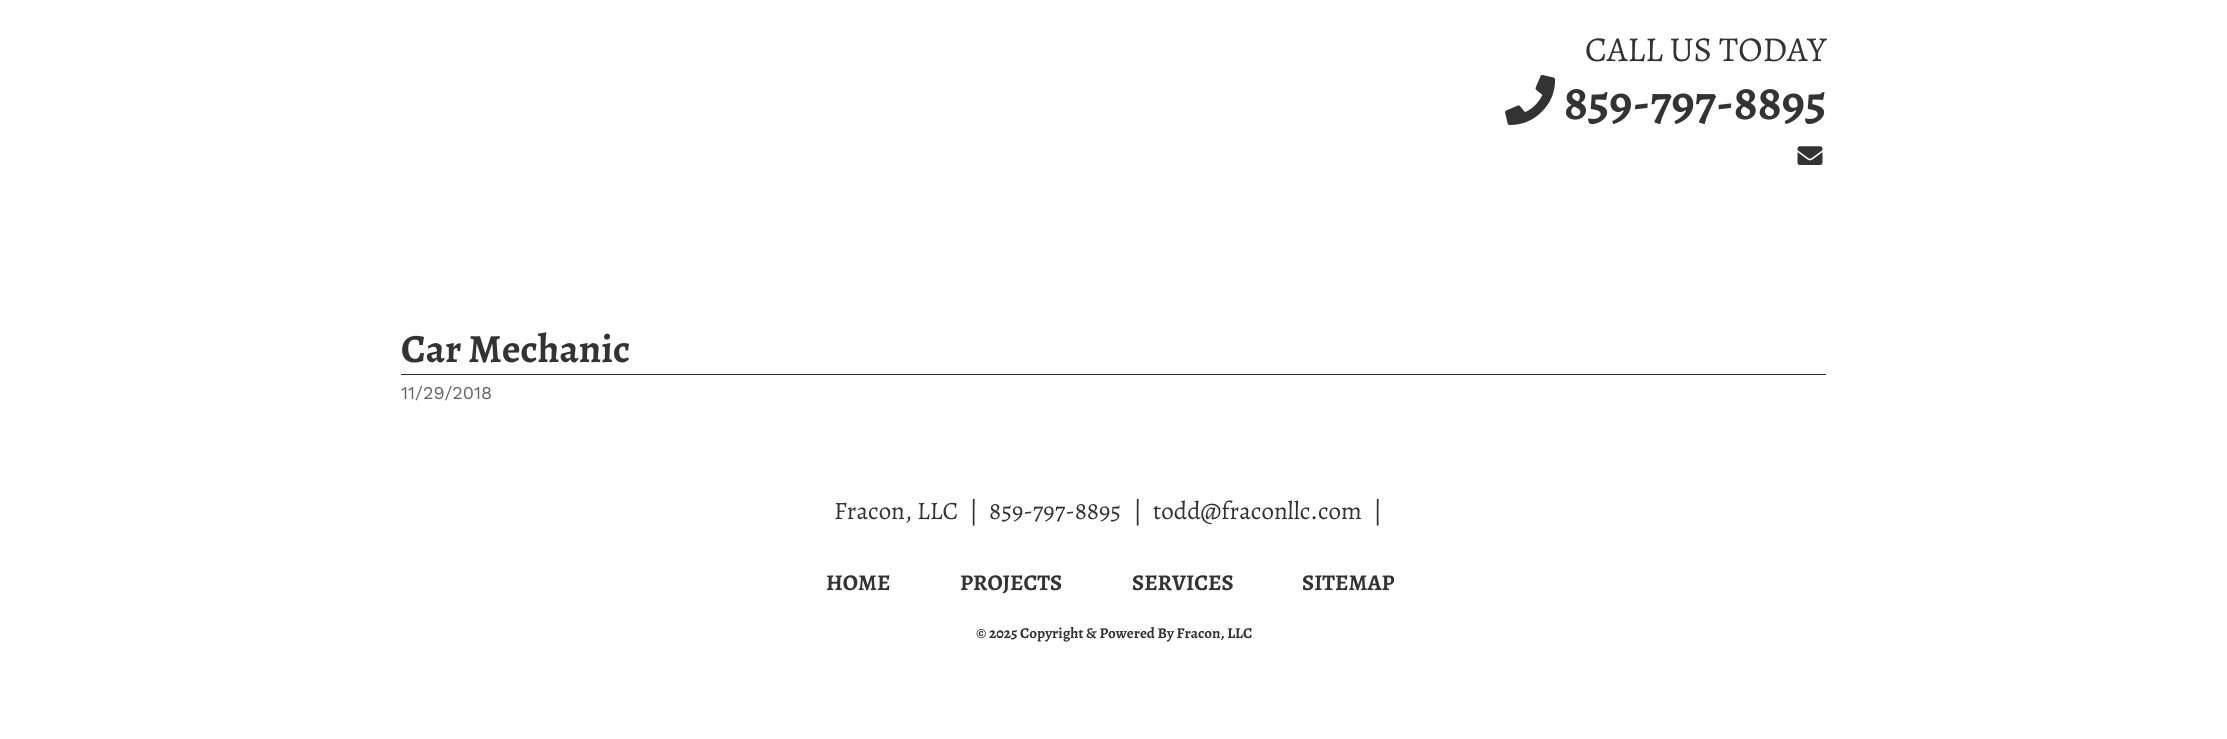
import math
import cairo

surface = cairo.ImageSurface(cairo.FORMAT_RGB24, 2227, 739)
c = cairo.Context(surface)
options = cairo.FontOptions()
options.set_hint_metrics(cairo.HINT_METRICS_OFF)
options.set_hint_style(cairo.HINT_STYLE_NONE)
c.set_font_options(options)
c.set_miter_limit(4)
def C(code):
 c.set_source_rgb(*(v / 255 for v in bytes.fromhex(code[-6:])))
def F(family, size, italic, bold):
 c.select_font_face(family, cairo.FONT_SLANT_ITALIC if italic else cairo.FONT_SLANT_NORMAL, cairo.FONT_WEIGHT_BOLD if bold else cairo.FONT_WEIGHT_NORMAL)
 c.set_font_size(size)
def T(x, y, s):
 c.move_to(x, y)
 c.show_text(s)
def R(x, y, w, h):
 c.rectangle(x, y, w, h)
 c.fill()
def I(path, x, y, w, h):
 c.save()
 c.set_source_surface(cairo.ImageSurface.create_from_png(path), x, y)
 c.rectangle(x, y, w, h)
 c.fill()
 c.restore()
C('ffffff')
c.paint()
F('Alegreya',35,0,0)
C('333333')
T(1585,61,'CALL US TODAY')
I('1.png',1505,75,51,50)
F('Alegreya',50,0,1)
T(1564,119,'859-797-8895')
I('2.png',1797,146,26,19)
R(401,374,1425,1)
F('Alegreya',40,0,1)
T(401,362,'Car Mechanic')
F('Work Sans',18,0,0)
C('666666')
T(401,399,'11/29/2018')
F('Alegreya',25,0,0)
C('333333')
T(834,519,'Fracon, LLC')
T(969,519,'|')
T(989,519,'859-797-8895')
T(1133,519,'|')
T(1153,519,'todd@fraconllc.com')
T(1373,519,'|')
F('Alegreya',22.5,0,1)
T(826,590,'HOME')
T(960,590,'PROJECTS')
T(1132,590,'SERVICES')
T(1302,590,'SITEMAP')
F('Alegreya',15,0,1)
T(976,638,'© 2025 Copyright & Powered By Fracon, LLC')
surface.write_to_png('o.png')
